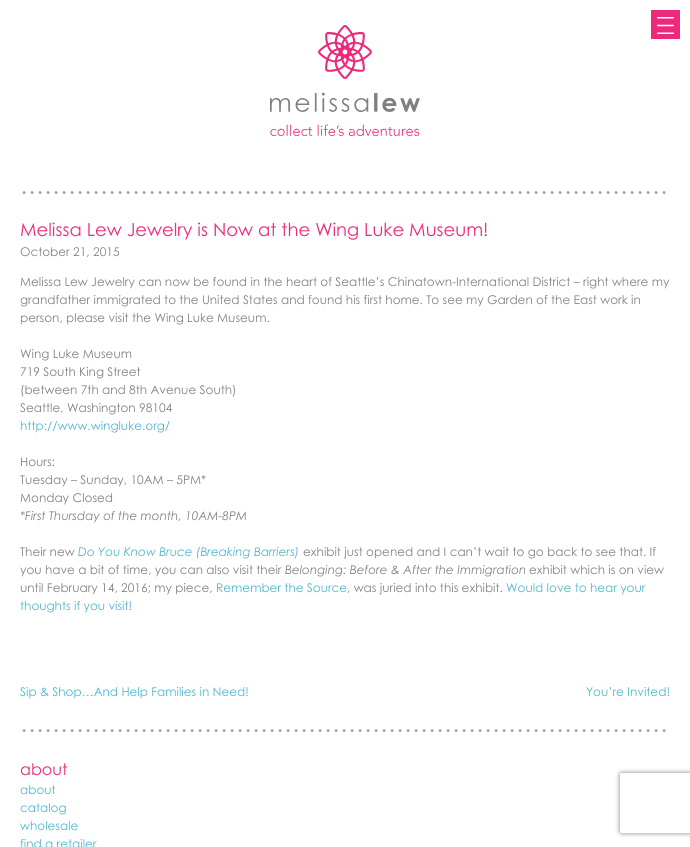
import math
import cairo

surface = cairo.ImageSurface(cairo.FORMAT_RGB24, 690, 847)
c = cairo.Context(surface)
options = cairo.FontOptions()
options.set_hint_metrics(cairo.HINT_METRICS_OFF)
options.set_hint_style(cairo.HINT_STYLE_NONE)
c.set_font_options(options)
c.set_miter_limit(4)
def C(code):
 c.set_source_rgb(*(v / 255 for v in bytes.fromhex(code[-6:])))
def F(family, size, italic, bold):
 c.select_font_face(family, cairo.FONT_SLANT_ITALIC if italic else cairo.FONT_SLANT_NORMAL, cairo.FONT_WEIGHT_BOLD if bold else cairo.FONT_WEIGHT_NORMAL)
 c.set_font_size(size)
def T(x, y, s):
 c.move_to(x, y)
 c.show_text(s)
def R(x, y, w, h):
 c.rectangle(x, y, w, h)
 c.fill()
def Q(x, y, w, h, r):
 c.new_sub_path()
 for i, (u, v) in enumerate([(x + w - r, y + h - r), (x + r, y + h - r), (x + r, y + r), (x + w - r, y + r)]):
  c.arc(u, v, r, i * math.pi / 2, (i + 1) * math.pi / 2)
 c.close_path()
def S(x, y, w, h, r, blur, alpha):
 c.push_group_with_content(cairo.CONTENT_ALPHA)
 c.set_operator(cairo.OPERATOR_SOURCE)
 for i in range(15, -16, -2):
  e = blur * i / 6
  if min(w, h) + 2 * e > 0:
   c.set_source_rgba(0, 0, 0, alpha * math.erfc((i - 1) / 8.5) / 2)
   Q(x - e, y - e, w + 2 * e, h + 2 * e, max(0, min(r + e + blur * .6, min(w, h) / 2 + e)))
   c.fill()
 c.mask(c.pop_group())
def I(path, x, y, w, h):
 c.save()
 c.set_source_surface(cairo.ImageSurface.create_from_png(path), x, y)
 c.rectangle(x, y, w, h)
 c.fill()
 c.restore()
C('ffffff')
c.paint()
I('1.png',270,25,150,111)
C('ec297b')
R(651,10,29,29)
I('2.png',657,17,17,17)
I('3.png',22,191,644,3)
F('Century Gothic',18,0,0)
C('ee2a7b')
T(20,236,'Melissa Lew Jewelry is Now at the Wing Luke Museum!')
F('Century Gothic',12,0,0)
C('808285')
T(20,256,'October 21, 2015')
T(20,286,'Melissa Lew Jewelry can now be found in the heart of Seattle’s Chinatown-International District – right where my')
T(20,304,'grandfather immigrated to the United States and found his first home. To see my Garden of the East work in')
T(20,322,'person, please visit the Wing Luke Museum.')
T(20,358,'Wing Luke Museum')
T(20,376,'719 South King Street')
T(20,394,'(between 7th and 8th Avenue South)')
T(20,412,'Seattle, Washington 98104')
C('50b6cb')
T(20,430,'http://www.wingluke.org/')
C('808285')
T(20,466,'Hours:')
T(20,484,'Tuesday – Sunday, 10AM – 5PM*')
T(20,502,'Monday Closed')
F('Century Gothic',12,1,0)
T(20,520,'*First Thursday of the month, 10AM-8PM')
F('Century Gothic',12,0,0)
T(20,556,'Their new')
F('Century Gothic',12,1,0)
C('50b6cb')
T(78,556,'Do You Know Bruce (Breaking Barriers)')
F('Century Gothic',12,0,0)
C('808285')
T(303,556,'exhibit just opened and I can’t wait to go back to see that. If')
T(20,574,'you have a bit of time, you can also visit their')
F('Century Gothic',12,1,0)
T(285,574,'Belonging: Before & After the Immigration')
F('Century Gothic',12,0,0)
T(529,574,'exhibit which is on view')
T(20,592,'until February 14, 2016; my piece,')
C('50b6cb')
T(216,592,'Remember the Source')
C('808285')
T(347,592,', was juried into this exhibit.')
C('50b6cb')
T(506,592,'Would love to hear your')
T(20,610,'thoughts if you visit!')
T(20,696,'Sip & Shop…And Help Families in Need!')
T(586,696,'You’re Invited!')
I('3.png',22,729,644,3)
F('Century Gothic',16,0,0)
C('ee2a7b')
T(20,775,'about')
F('Century Gothic',12,0,0)
C('50b6cb')
T(20,794,'about')
T(20,812,'catalog')
T(20,830,'wholesale')
T(20,848,'find a retailer')
c.save()
c.set_fill_rule(cairo.FILL_RULE_EVEN_ODD)
c.new_path()
c.move_to(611,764)
c.line_to(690,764)
c.line_to(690,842)
c.line_to(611,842)
c.close_path()
c.move_to(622,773)
c.line_to(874,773)
c.curve_to(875,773,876,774,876,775)
c.line_to(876,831)
c.curve_to(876,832,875,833,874,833)
c.line_to(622,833)
c.curve_to(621,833,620,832,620,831)
c.line_to(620,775)
c.curve_to(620,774,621,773,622,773)
c.close_path()
c.clip()
C('808080')
S(620,773,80,60,2,2.5,1)
c.restore()
surface.write_to_png('o.png')
